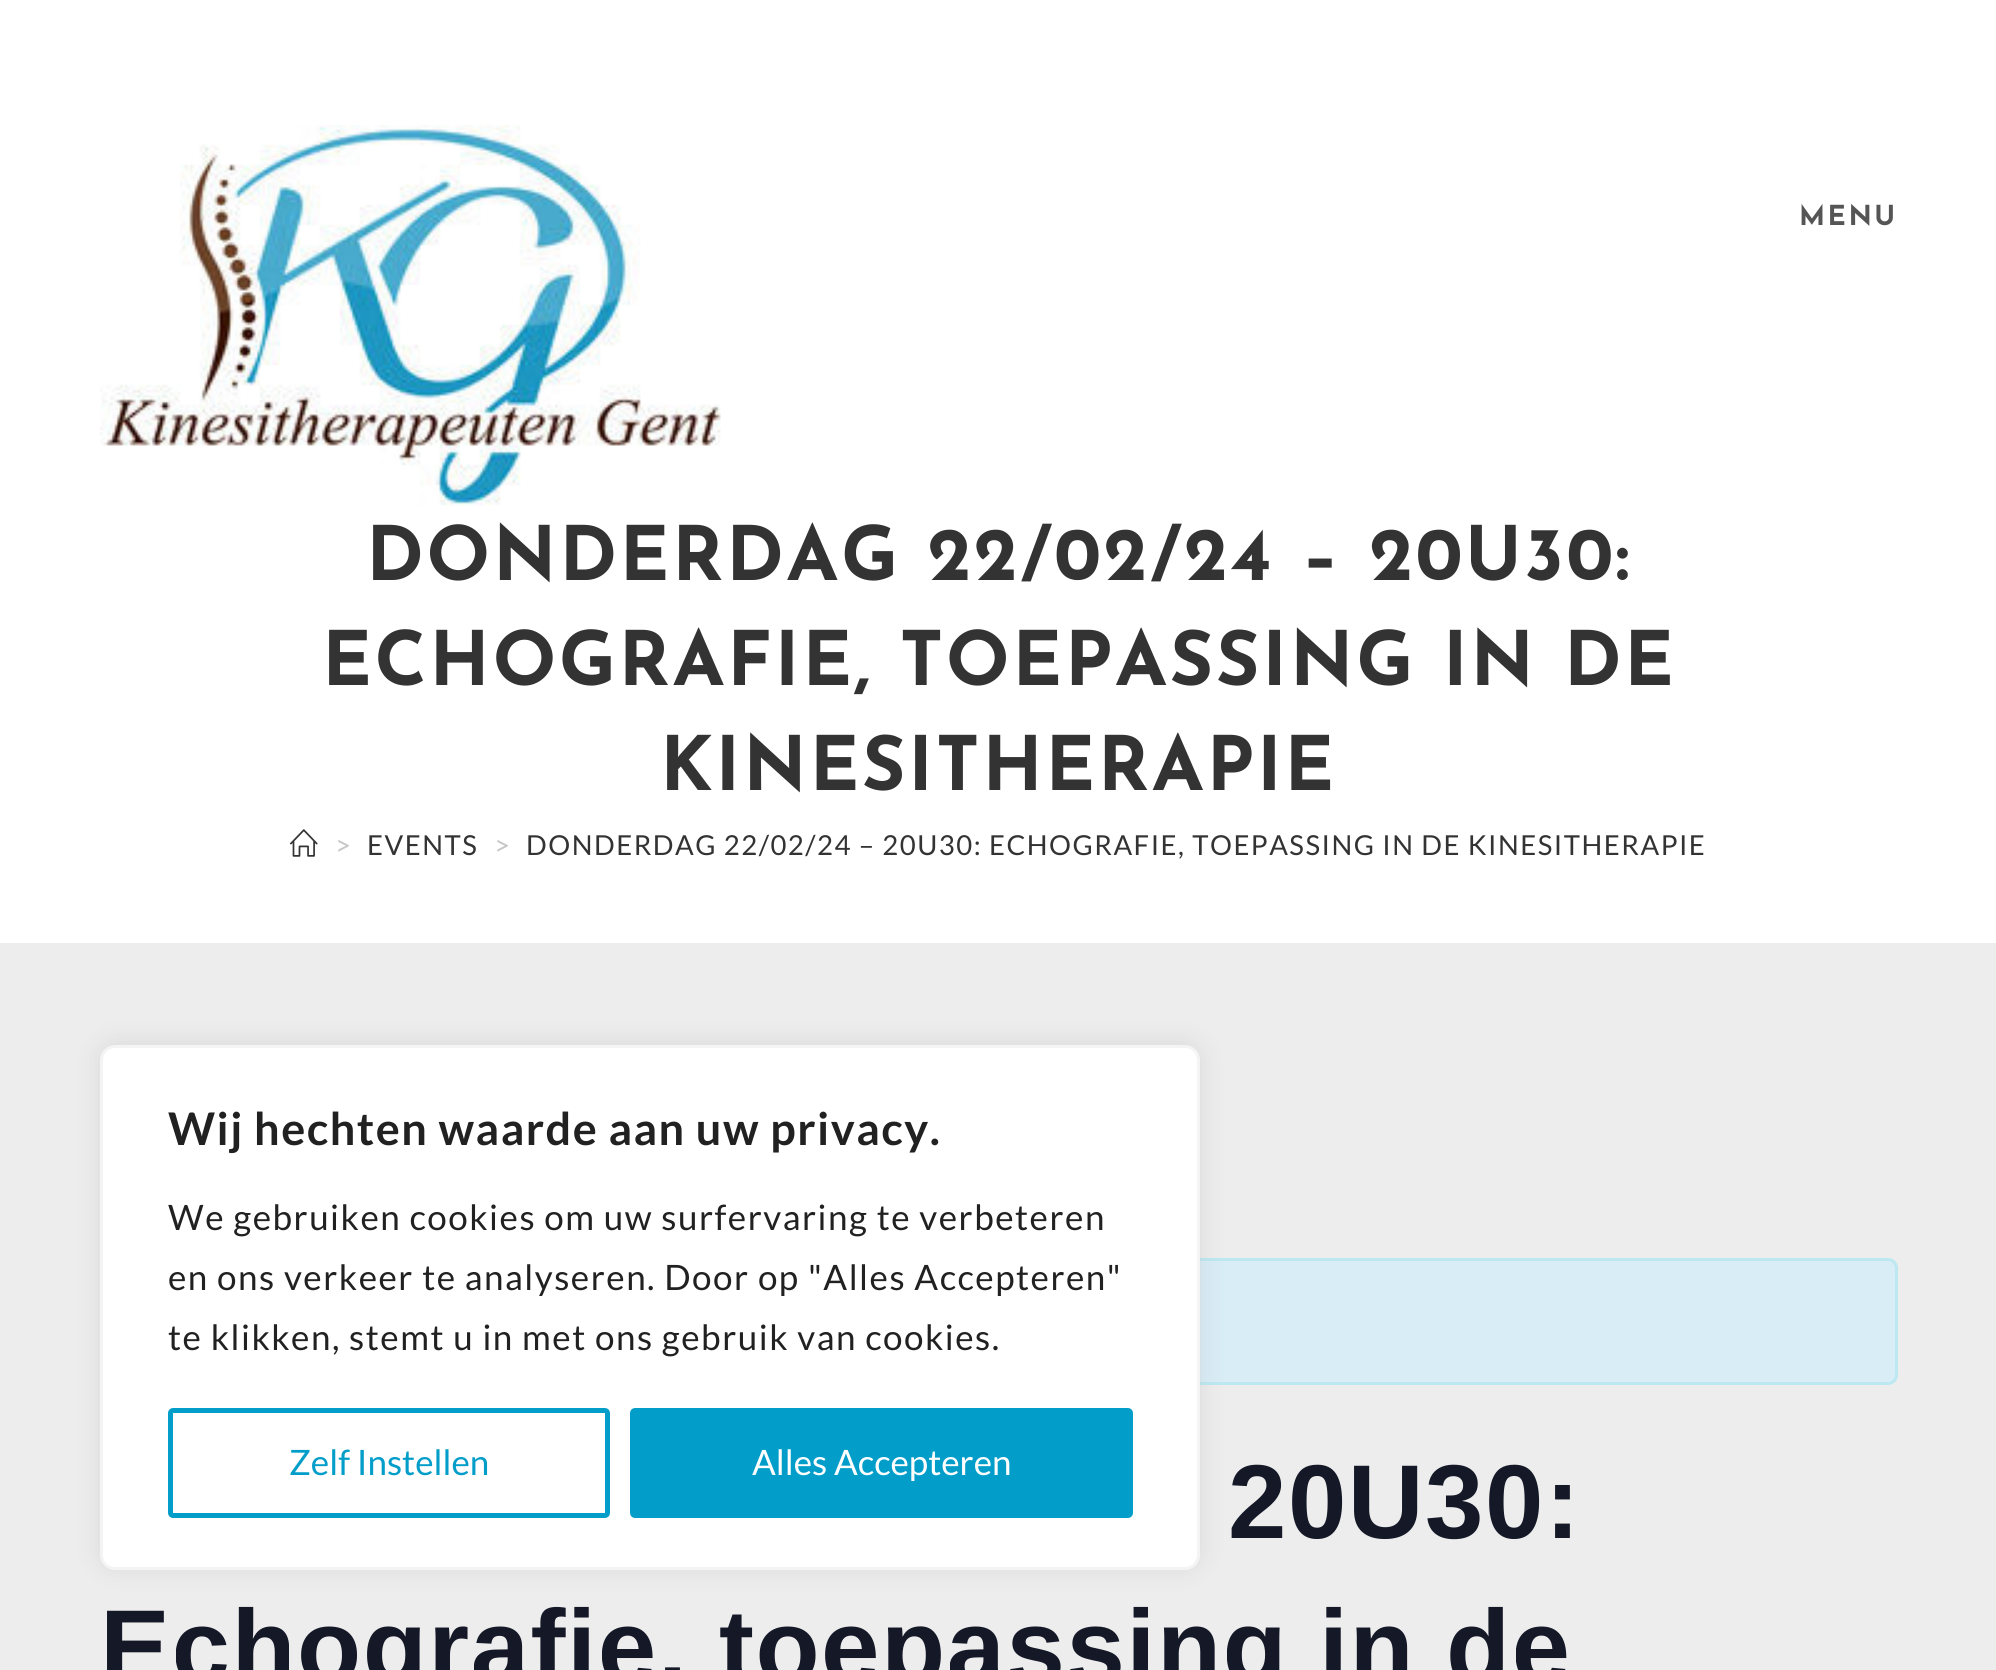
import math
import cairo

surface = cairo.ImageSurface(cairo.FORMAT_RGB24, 1996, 1670)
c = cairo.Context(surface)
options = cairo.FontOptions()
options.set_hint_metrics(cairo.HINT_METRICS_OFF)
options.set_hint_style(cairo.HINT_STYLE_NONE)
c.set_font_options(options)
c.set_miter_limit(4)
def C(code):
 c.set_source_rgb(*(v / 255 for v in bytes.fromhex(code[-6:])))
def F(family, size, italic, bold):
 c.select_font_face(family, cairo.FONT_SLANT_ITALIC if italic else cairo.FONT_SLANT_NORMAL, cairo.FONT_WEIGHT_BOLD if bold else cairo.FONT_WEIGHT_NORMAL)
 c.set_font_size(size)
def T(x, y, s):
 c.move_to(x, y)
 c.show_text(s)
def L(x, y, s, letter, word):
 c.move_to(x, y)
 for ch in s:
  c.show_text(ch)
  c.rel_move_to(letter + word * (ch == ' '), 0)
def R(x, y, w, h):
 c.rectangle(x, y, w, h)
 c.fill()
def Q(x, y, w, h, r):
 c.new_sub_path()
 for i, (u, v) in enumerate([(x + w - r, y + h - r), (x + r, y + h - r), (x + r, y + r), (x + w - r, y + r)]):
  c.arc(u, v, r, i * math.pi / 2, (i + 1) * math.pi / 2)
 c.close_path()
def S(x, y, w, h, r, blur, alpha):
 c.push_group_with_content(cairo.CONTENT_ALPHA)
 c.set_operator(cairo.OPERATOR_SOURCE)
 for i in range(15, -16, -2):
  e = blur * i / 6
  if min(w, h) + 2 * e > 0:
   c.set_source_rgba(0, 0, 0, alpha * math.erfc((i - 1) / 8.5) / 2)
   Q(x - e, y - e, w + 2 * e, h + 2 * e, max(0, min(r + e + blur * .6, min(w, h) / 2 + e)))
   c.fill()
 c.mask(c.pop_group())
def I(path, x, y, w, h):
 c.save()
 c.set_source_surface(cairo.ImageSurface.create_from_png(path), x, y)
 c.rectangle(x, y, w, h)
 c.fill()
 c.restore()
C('ededed')
c.paint()
C('ffffff')
R(0,0,1996,943)
I('1.png',100,125,621,381)
F('Josefin Sans',27.5,0,1)
C('555555')
L(1799,225,'MENU',2.5,0)
F('Josefin Sans',75,0,1)
C('333333')
L(366,580,'DONDERDAG 22/02/24 – 20U30:',2.5,0)
L(322,685,'ECHOGRAFIE, TOEPASSING IN DE',2.5,0)
L(660,790,'KINESITHERAPIE',2.5,0)
I('2.png',290,829,28,28)
F('Lato',27.5,0,0)
C('c6c6c6')
L(335,855,'>',1.5,0)
C('333333')
L(367,855,'EVENTS',1.5,0)
C('c6c6c6')
L(494,855,'>',1.5,0)
C('333333')
L(526,855,'DONDERDAG 22/02/24 – 20U30: ECHOGRAFIE, TOEPASSING IN DE KINESITHERAPIE',1.5,0)
C('d9edf7')
Q(101.5,1259.5,1795,124,8.5)
c.fill_preserve()
C('bce8f1')
c.set_line_width(3)
c.stroke()
F('Liberation Sans',105,0,1)
C('141827')
L(1228,1538,'20U30:',1.5,0)
L(100,1683,'Echografie, toepassing in de',1.5,0)
C('acabab')
S(100,1043,1100,525,15,12.5,.3)
C('ffffff')
Q(101.5,1046.5,1097,522,13.5)
c.fill_preserve()
C('f4f4f4')
c.stroke()
F('Lato',45,0,1)
C('212121')
L(168,1145,'Wij hechten waarde aan uw privacy.',1.5,0)
F('Lato',35,0,0)
L(168,1230,'We gebruiken cookies om uw surfervaring te verbeteren',1.5,0)
L(168,1290,'en ons verkeer te analyseren. Door op "Alles Accepteren"',1.5,0)
L(168,1350,'te klikken, stemt u in met ons gebruik van cookies.',1.5,0)
Q(170.5,1410.5,437,105,2.5)
C('029dc9')
c.set_line_width(5)
c.stroke()
T(289,1475,'Zelf Instellen')
Q(632.5,1410.5,498,105,2.5)
c.fill_preserve()
c.stroke()
C('ffffff')
T(752,1475,'Alles Accepteren')
surface.write_to_png('o.png')
